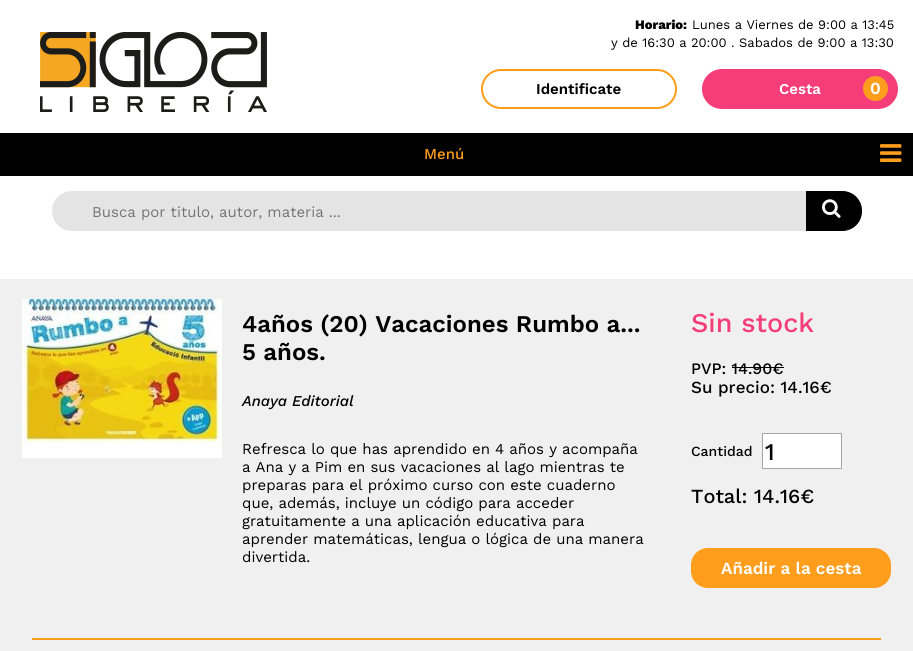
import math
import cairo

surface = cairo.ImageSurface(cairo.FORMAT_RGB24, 913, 651)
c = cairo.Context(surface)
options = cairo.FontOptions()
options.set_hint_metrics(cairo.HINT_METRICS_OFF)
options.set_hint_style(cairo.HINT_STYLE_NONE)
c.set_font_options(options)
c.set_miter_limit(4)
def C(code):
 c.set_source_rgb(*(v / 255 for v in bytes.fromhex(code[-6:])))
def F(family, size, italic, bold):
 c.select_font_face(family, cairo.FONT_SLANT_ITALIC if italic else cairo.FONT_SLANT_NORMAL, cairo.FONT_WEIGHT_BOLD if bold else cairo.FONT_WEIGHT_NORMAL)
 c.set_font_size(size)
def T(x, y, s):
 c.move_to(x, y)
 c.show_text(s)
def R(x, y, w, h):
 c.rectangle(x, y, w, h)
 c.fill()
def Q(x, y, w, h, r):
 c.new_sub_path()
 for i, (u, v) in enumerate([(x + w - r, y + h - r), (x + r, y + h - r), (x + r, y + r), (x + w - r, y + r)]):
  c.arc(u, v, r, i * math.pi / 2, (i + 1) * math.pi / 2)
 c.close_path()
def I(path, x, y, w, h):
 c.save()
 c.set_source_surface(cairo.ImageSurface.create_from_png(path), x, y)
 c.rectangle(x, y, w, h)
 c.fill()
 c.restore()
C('ffffff')
c.paint()
I('1.png',40,32,227,80)
F('Work Sans ExtraBold',13,0,0)
C('000000')
T(635,29,'Horario:')
F('Work Sans',13,0,0)
T(692,29,'Lunes a Viernes de 9:00 a 13:45')
T(611,47,'y de 16:30 a 20:00 . Sabados de 9:00 a 13:30')
Q(482,70,194,38,19)
C('ff9d1b')
c.stroke()
F('Work Sans SemiBold',15,0,0)
C('000000')
T(536,94,'Identificate')
C('f53d7a')
Q(702,69,196,40,20)
c.fill()
C('ffffff')
T(779,94,'Cesta')
C('ff9d1c')
c.new_path()
c.arc(875.5,88.5,12.5,0,2 * math.pi)
c.fill()
F('Work Sans SemiBold',17,0,0)
C('ffffff')
T(870,94,'0')
C('000000')
R(0,133,913,43)
F('Work Sans Medium',15,0,0)
C('ff9d1c')
T(424,159,'Menú')
I('2.png',880,144,22,18)
C('e4e4e4')
Q(52,191,810,40,20)
c.fill()
F('Work Sans',15,0,0)
C('757575')
T(92,217,'Busca por titulo, autor, materia ...')
C('000000')
c.new_path()
c.move_to(806.5,191.5)
c.line_to(842,191.5)
c.curve_to(853,191.5,861.5,200,861.5,211)
c.curve_to(861.5,222,853,230.5,842,230.5)
c.line_to(806.5,230.5)
c.close_path()
c.fill_preserve()
c.set_line_width(1)
c.stroke()
I('3.png',822,199,19,19)
C('f0f0f0')
R(0,279,913,372)
I('4.png',22,299,200,159)
F('Work Sans SemiBold',24,0,0)
C('000000')
T(242,332,'4años (20) Vacaciones Rumbo a...')
T(242,360,'5 años.')
F('Work Sans Medium',15,1,0)
T(242,406,'Anaya Editorial')
F('Work Sans',15,0,0)
T(242,454,'Refresca lo que has aprendido en 4 años y acompaña')
T(242,472,'a Ana y a Pim en sus vacaciones al lago mientras te')
T(242,490,'preparas para el próximo curso con este cuaderno')
T(242,508,'que, además, incluye un código para acceder')
T(242,526,'gratuitamente a una aplicación educativa para')
T(242,544,'aprender matemáticas, lengua o lógica de una manera')
T(242,562,'divertida.')
F('Work Sans Medium',27,0,0)
C('f53d7a')
T(691,332,'Sin stock')
F('Work Sans Medium',16,0,0)
C('000000')
T(691,374,'PVP: 14.90€')
R(732,367,52,1)
F('Work Sans Medium',17,0,0)
T(691,393,'Su precio: 14.16€')
F('Work Sans Medium',14,0,0)
T(691,456,'Cantidad')
C('ffffff')
c.rectangle(762.5,433.5,79,35)
c.fill_preserve()
C('a6a6a6')
c.stroke()
F('Work Sans Medium',24,0,0)
C('000000')
T(765,460,'1')
F('Work Sans Medium',20,0,0)
T(691,503,'Total: 14.16€')
C('ff9d1c')
Q(691,548,200,40,17)
c.fill()
F('Work Sans SemiBold',17,0,0)
C('ffffff')
T(721,574,'Añadir a la cesta')
C('ff9d1c')
R(32,638,849,2)
surface.write_to_png('o.png')
